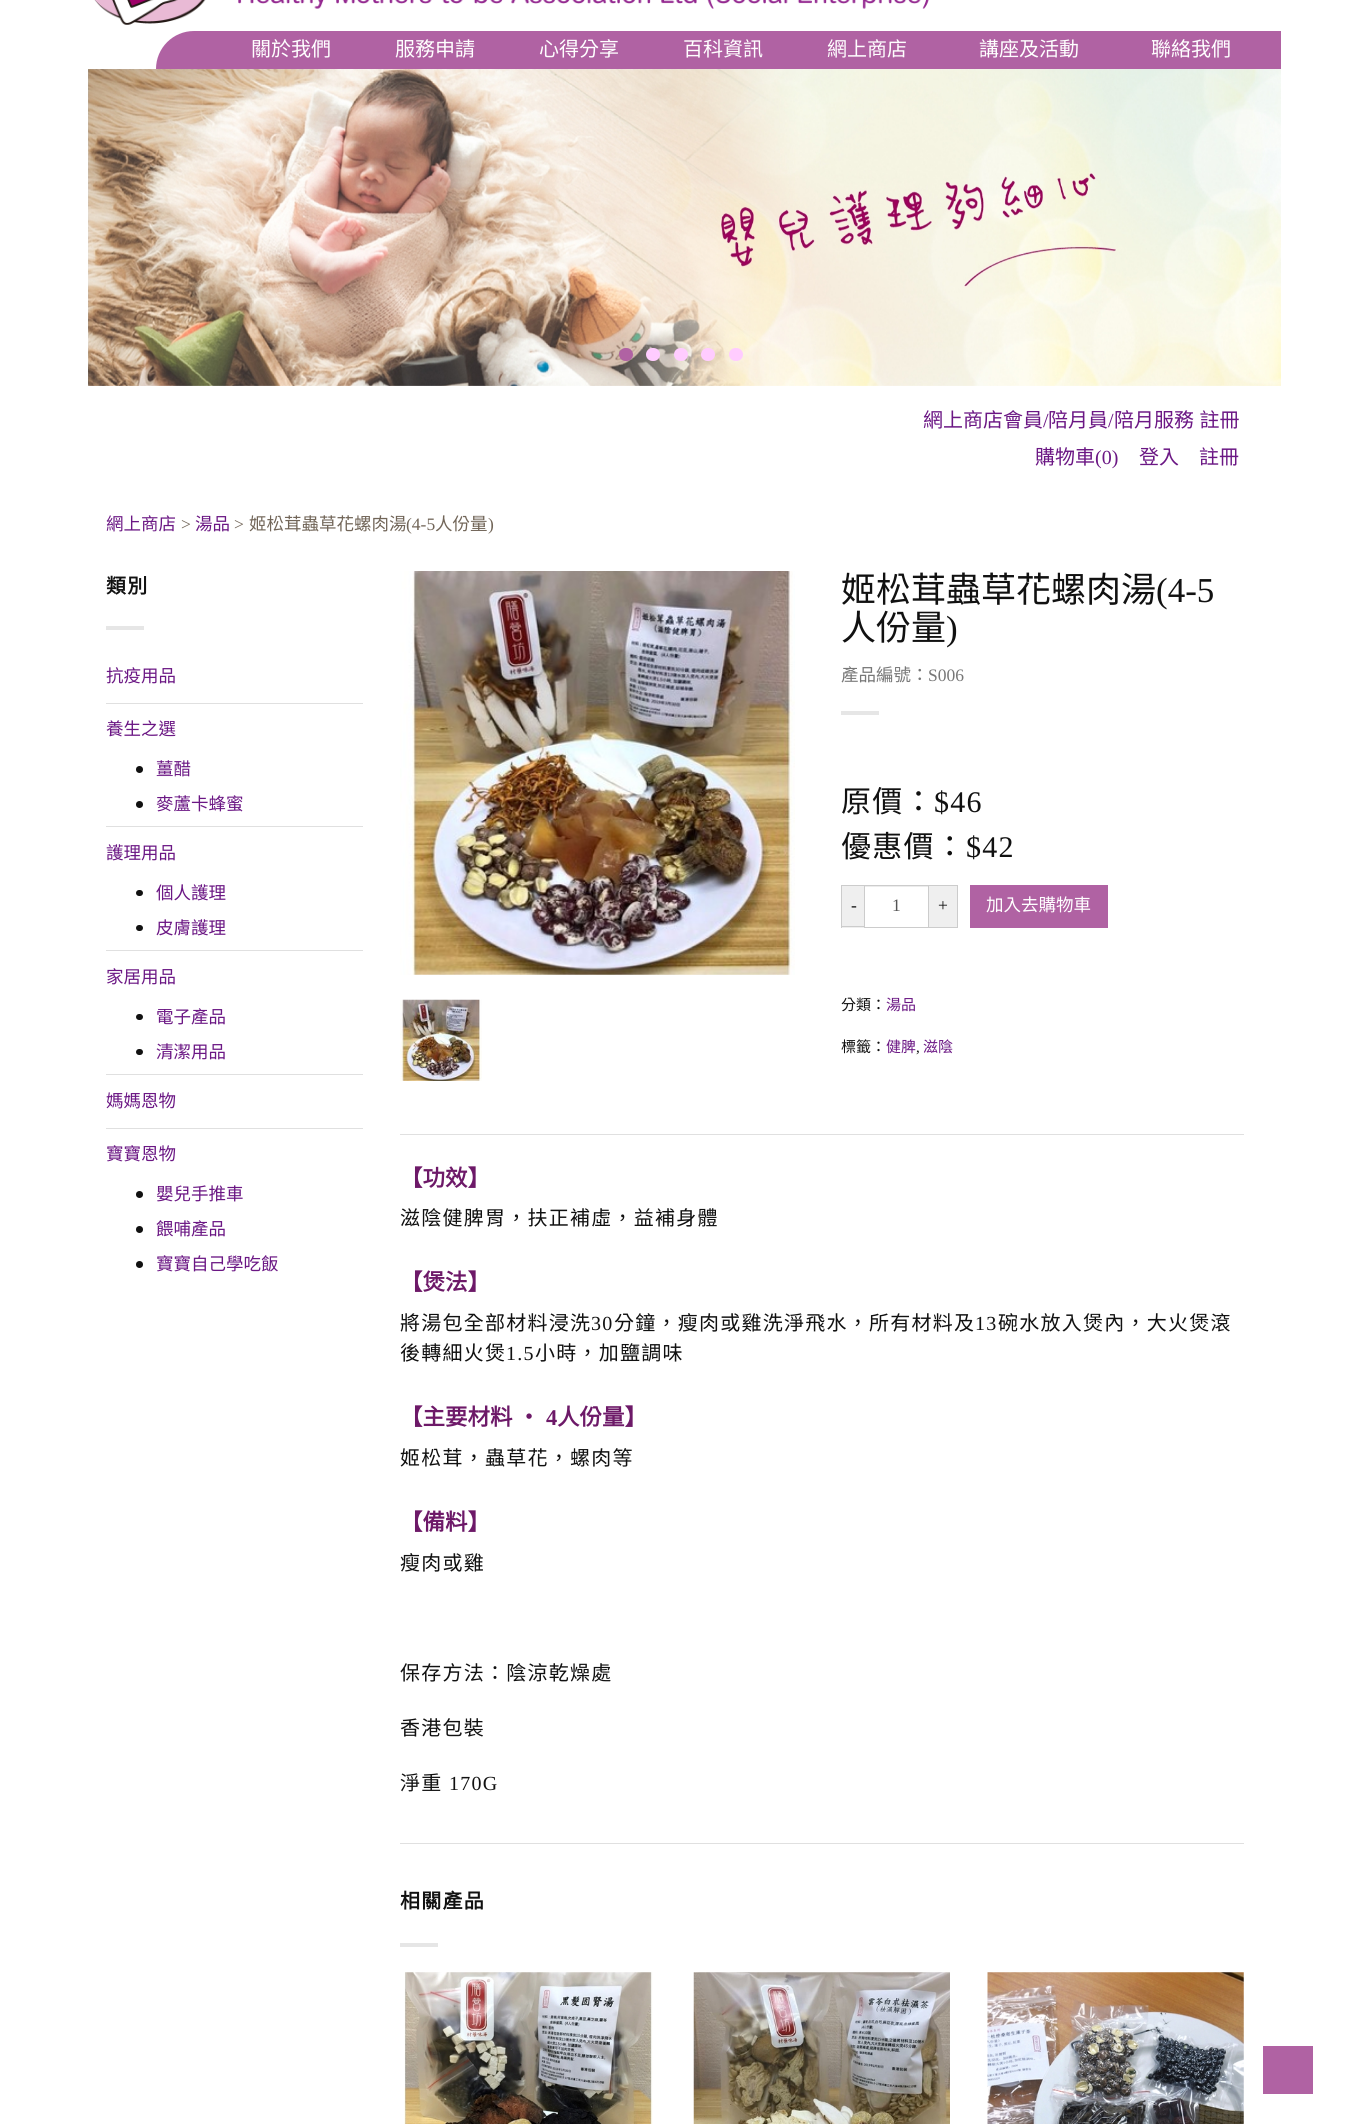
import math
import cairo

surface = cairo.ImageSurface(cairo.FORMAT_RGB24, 1350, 2124)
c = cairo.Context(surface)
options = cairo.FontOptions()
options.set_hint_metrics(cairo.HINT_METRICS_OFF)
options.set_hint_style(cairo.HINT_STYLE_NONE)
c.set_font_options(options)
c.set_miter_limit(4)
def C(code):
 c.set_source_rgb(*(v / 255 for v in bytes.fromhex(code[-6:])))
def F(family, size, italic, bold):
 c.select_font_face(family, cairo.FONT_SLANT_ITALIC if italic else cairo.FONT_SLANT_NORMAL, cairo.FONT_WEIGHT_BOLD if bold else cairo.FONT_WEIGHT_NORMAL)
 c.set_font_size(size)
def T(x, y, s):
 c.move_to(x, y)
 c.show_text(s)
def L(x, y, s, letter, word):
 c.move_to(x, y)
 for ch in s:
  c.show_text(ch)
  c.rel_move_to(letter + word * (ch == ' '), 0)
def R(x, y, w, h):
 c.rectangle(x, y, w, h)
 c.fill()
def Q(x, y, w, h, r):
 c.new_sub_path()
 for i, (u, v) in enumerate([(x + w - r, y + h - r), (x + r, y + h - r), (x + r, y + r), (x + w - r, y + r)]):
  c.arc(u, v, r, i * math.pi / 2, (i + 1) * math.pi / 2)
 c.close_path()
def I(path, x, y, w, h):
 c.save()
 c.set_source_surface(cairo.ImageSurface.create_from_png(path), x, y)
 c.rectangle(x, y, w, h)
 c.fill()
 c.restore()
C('ffffff')
c.paint()
I('1.png',94,0,835,25)
C('b062a3')
c.new_path()
c.move_to(194,31)
c.line_to(1281,31)
c.line_to(1281,69)
c.line_to(156,69)
c.curve_to(156,48,173,31,194,31)
c.close_path()
c.fill()
F('Noto Sans CJK TC',20,0,0)
C('ffffff')
T(251,56,'關於我們')
T(395,56,'服務申請')
T(539,56,'心得分享')
T(683,56,'百科資訊')
T(827,56,'網上商店')
T(979,56,'講座及活動')
T(1151,56,'聯絡我們')
I('2.png',88,69,1193,317)
C('b062a3')
Q(619,348,14,13,6.5)
c.fill()
C('ffccff')
Q(646,348,14,13,6.5)
c.fill()
Q(674,348,14,13,6.5)
c.fill()
Q(701,348,14,13,6.5)
c.fill()
Q(729,348,14,13,6.5)
c.fill()
C('6b1784')
T(923,427,'網上商店會員')
F('Liberation Serif',20,0,0)
T(1043,427,'/')
F('Noto Sans CJK TC',20,0,0)
T(1048,427,'陪月員')
F('Liberation Serif',20,0,0)
T(1108,427,'/')
F('Noto Sans CJK TC',20,0,0)
L(1114,427,'陪月服務 註冊',0,1)
T(1035,464,'購物車')
F('Liberation Serif',20,0,0)
T(1095,464,'(0)')
F('Noto Sans CJK TC',20,0,0)
T(1139,464,'登入')
T(1199,464,'註冊')
F('Noto Sans CJK TC',17.5,0,0)
T(106,530,'網上商店')
F('Liberation Serif',17.5,0,0)
C('716558')
T(181,530,'>')
F('Noto Sans CJK TC',17.5,0,0)
C('6b1784')
T(195,530,'湯品')
F('Liberation Serif',17.5,0,0)
C('716558')
T(234,530,'>')
F('Noto Sans CJK TC',17.5,0,0)
T(249,530,'姬松茸蟲草花螺肉湯')
F('Liberation Serif',17.5,0,0)
T(406,530,'(4-5')
F('Noto Sans CJK TC',17.5,0,0)
T(435,530,'人份量')
F('Liberation Serif',17.5,0,0)
T(488,530,')')
F('Noto Sans CJK TC',20,0,1)
C('111111')
L(106,593,'類別',1.25,0)
C('e6e6e6')
R(106,626,38,4)
F('Noto Sans CJK TC',17.5,0,0)
C('6b1784')
T(106,682,'抗疫用品')
C('e0e0e0')
R(106,703,257,1)
C('6b1784')
T(106,735,'養生之選')
C('111111')
c.new_path()
c.arc(139.5,769.5,3.5,0,2 * math.pi)
c.fill()
C('6b1784')
T(156,775,'薑醋')
C('111111')
c.new_path()
c.arc(139.5,804.5,3.5,0,2 * math.pi)
c.fill()
C('6b1784')
T(156,810,'麥蘆卡蜂蜜')
C('e0e0e0')
R(106,826,257,1)
C('6b1784')
T(106,859,'護理用品')
C('111111')
Q(136,890,7,6,3)
c.fill()
C('6b1784')
T(156,899,'個人護理')
C('111111')
Q(136,925,7,6,3)
c.fill()
C('6b1784')
T(156,934,'皮膚護理')
C('e0e0e0')
R(106,950,257,1)
C('6b1784')
T(106,983,'家居用品')
C('111111')
Q(136,1014,7,6,3)
c.fill()
C('6b1784')
T(156,1023,'電子產品')
C('111111')
Q(136,1049,7,6,3)
c.fill()
C('6b1784')
T(156,1058,'清潔用品')
C('e0e0e0')
R(106,1074,257,1)
C('6b1784')
T(106,1107,'媽媽恩物')
C('e0e0e0')
R(106,1128,257,1)
C('6b1784')
T(106,1160,'寶寶恩物')
C('111111')
c.new_path()
c.arc(139.5,1194.5,3.5,0,2 * math.pi)
c.fill()
C('6b1784')
T(156,1200,'嬰兒手推車')
C('111111')
c.new_path()
c.arc(139.5,1229.5,3.5,0,2 * math.pi)
c.fill()
C('6b1784')
T(156,1235,'餵哺產品')
C('111111')
c.new_path()
c.arc(139.5,1264.5,3.5,0,2 * math.pi)
c.fill()
C('6b1784')
T(156,1270,'寶寶自己學吃飯')
I('3.png',400,571,395,404)
I('4.png',400,999,82,82)
F('Noto Sans CJK TC',35,0,0)
C('111111')
T(841,602,'姬松茸蟲草花螺肉湯')
F('Liberation Serif',35,0,0)
T(1156,602,'(4-5')
F('Noto Sans CJK TC',35,0,0)
T(841,640,'人份量')
F('Liberation Serif',35,0,0)
T(946,640,')')
F('Noto Sans CJK TC',17.5,0,0)
C('777777')
T(841,681,'產品編號：')
F('Liberation Serif',17.5,0,0)
T(928,681,'S006')
C('e6e6e6')
R(841,711,38,4)
F('Noto Sans CJK TC',30,0,0)
C('111111')
L(841,812,'原價：',1.25,0)
F('Liberation Serif',30,0,0)
L(934,812,'$46',1.25,0)
F('Noto Sans CJK TC',30,0,0)
L(841,857,'優惠價：',1.25,0)
F('Liberation Serif',30,0,0)
L(966,857,'$42',1.25,0)
C('efefef')
R(842,886,22,42)
C('cccccc')
R(841,885,24,1)
R(841,926,24,1)
R(841,885,1,43)
F('Liberation Serif',17.5,0,0)
C('111111')
T(851,911,'-')
C('ececec')
R(865,886,63,1)
c.rectangle(864.5,885.5,64,42)
C('cccccc')
c.set_line_width(1)
c.stroke()
C('555555')
T(892,911,'1')
C('efefef')
c.rectangle(928.5,885.5,29,42)
c.fill_preserve()
C('cccccc')
c.stroke()
C('111111')
T(938,911,'+')
C('b062a3')
R(970,885,138,43)
F('Noto Sans CJK TC',17.5,0,0)
C('ffffff')
T(986,911,'加入去購物車')
F('Noto Sans CJK TC',15,0,0)
C('111111')
T(841,1010,'分類：')
C('6b1784')
T(886,1010,'湯品')
C('111111')
T(841,1052,'標籤：')
C('6b1784')
T(886,1052,'健脾')
F('Liberation Serif',15,0,0)
C('111111')
T(916,1052,',')
F('Noto Sans CJK TC',15,0,0)
C('6b1784')
T(923,1052,'滋陰')
C('e0e0e0')
R(400,1134,844,1)
R(400,1843,844,1)
F('Noto Sans CJK TC',22.5,0,1)
C('6d1968')
T(400,1186,'【功效】')
F('Noto Sans CJK TC',20,0,0)
C('111111')
L(400,1225,'滋陰健脾胃，扶正補虛，益補身體',1.25,0)
F('Noto Sans CJK TC',22.5,0,1)
C('6d1968')
T(400,1290,'【煲法】')
F('Noto Sans CJK TC',20,0,0)
C('111111')
L(400,1330,'將湯包全部材料浸洗',1.25,0)
F('Liberation Serif',20,0,0)
L(591,1330,'30',1.25,0)
F('Noto Sans CJK TC',20,0,0)
L(614,1330,'分鐘，瘦肉或雞洗淨飛水，所有材料及',1.25,0)
F('Liberation Serif',20,0,0)
L(975,1330,'13',1.25,0)
F('Noto Sans CJK TC',20,0,0)
L(998,1330,'碗水放入煲內，大火煲滾',1.25,0)
L(400,1360,'後轉細火煲',1.25,0)
F('Liberation Serif',20,0,0)
L(506,1360,'1.5',1.25,0)
F('Noto Sans CJK TC',20,0,0)
L(535,1360,'小時，加鹽調味',1.25,0)
F('Noto Sans CJK TC',22.5,0,1)
C('6d1968')
T(400,1425,'【主要材料 ‧')
F('Liberation Serif',22.5,0,1)
T(546,1425,'4')
F('Noto Sans CJK TC',22.5,0,1)
T(557,1425,'人份量】')
F('Noto Sans CJK TC',20,0,0)
C('111111')
L(400,1465,'姬松茸，蟲草花，螺肉等',1.25,0)
F('Noto Sans CJK TC',22.5,0,1)
C('6d1968')
T(400,1530,'【備料】')
F('Noto Sans CJK TC',20,0,0)
C('111111')
L(400,1570,'瘦肉或雞',1.25,0)
L(400,1680,'保存方法：陰涼乾燥處',1.25,0)
L(400,1735,'香港包裝',1.25,0)
L(400,1790,'淨重',1.25,0)
F('Liberation Serif',20,0,0)
L(449,1790,'170G',1.25,0)
F('Noto Sans CJK TC',20,0,1)
L(400,1908,'相關產品',1.25,0)
C('e6e6e6')
R(400,1943,38,4)
I('5.png',404,1972,249,152)
I('6.png',693,1972,257,152)
I('7.png',987,1972,257,152)
C('b062a3')
R(1263,2046,50,48)
surface.write_to_png('o.png')
